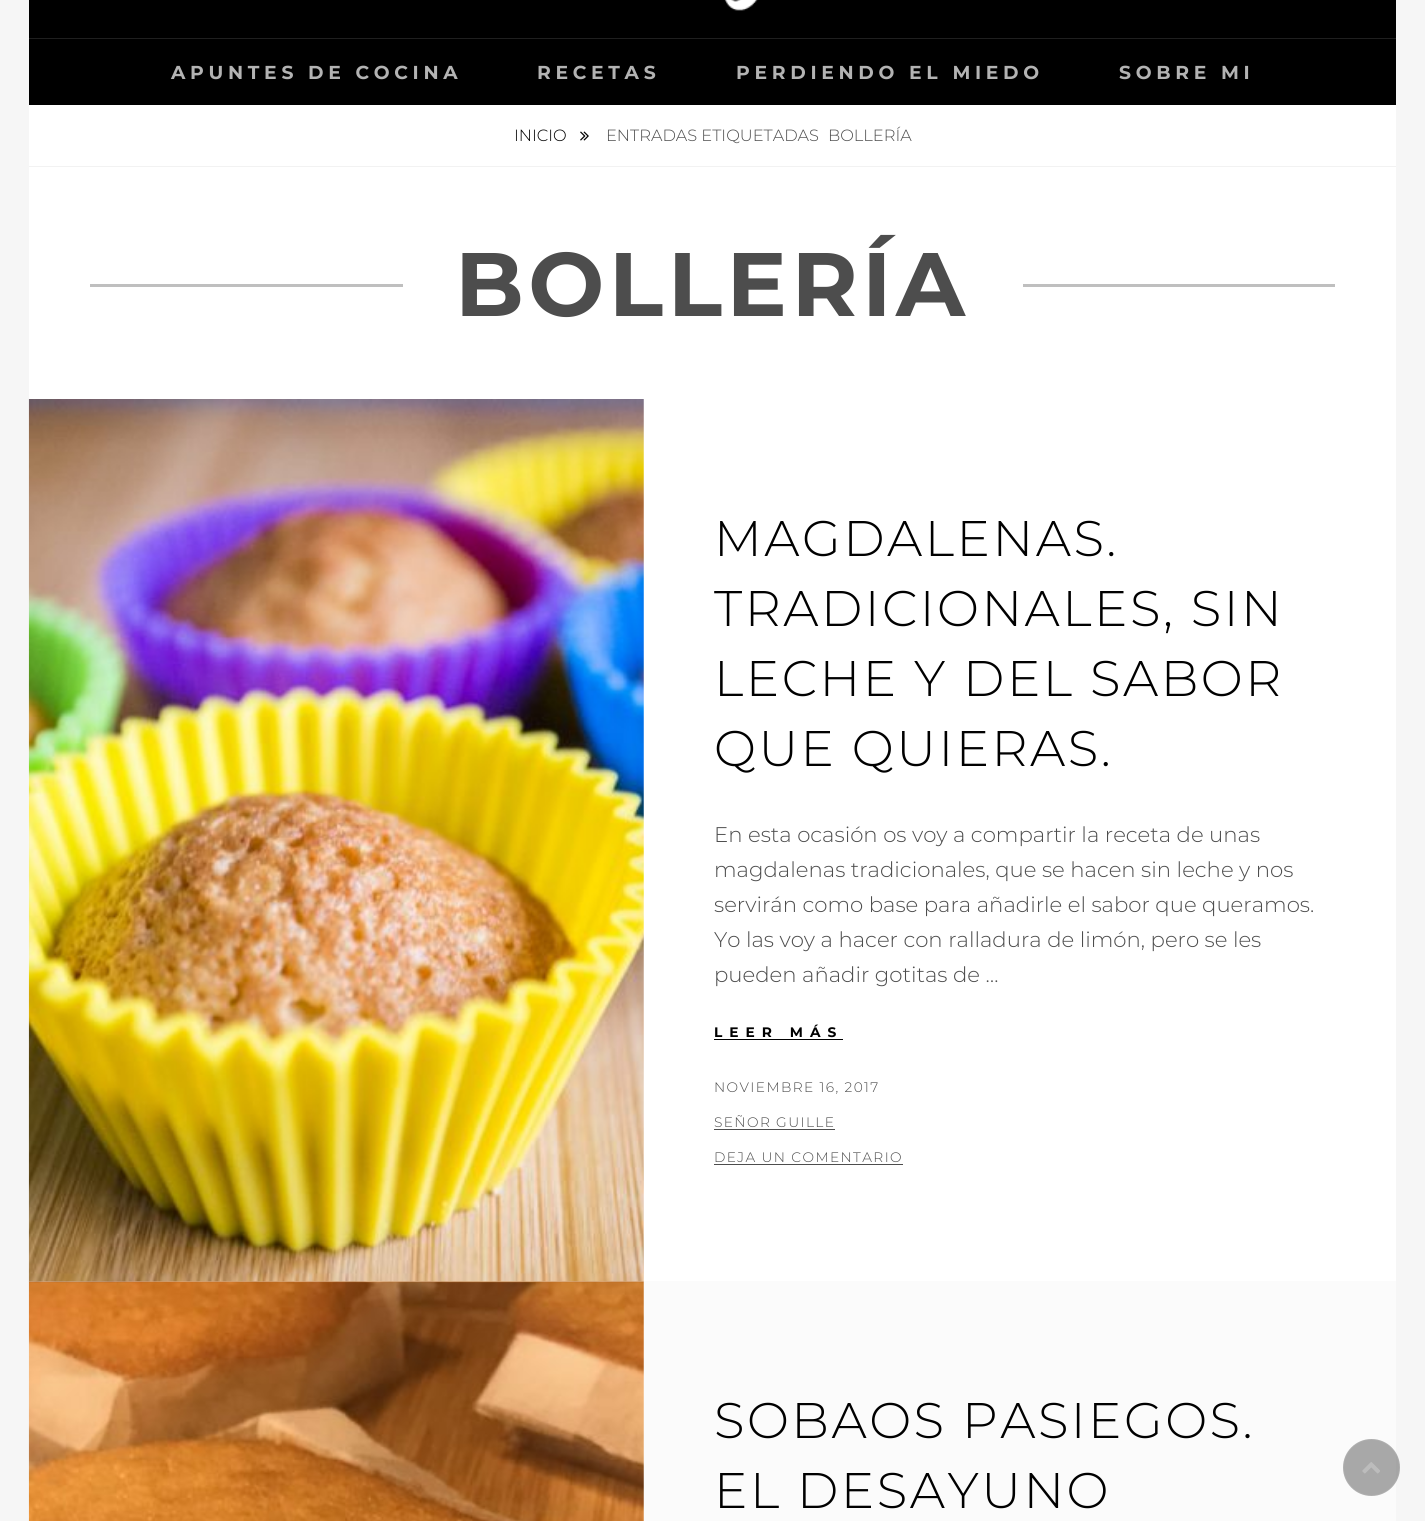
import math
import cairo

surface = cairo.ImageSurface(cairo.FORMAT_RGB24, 1425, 1521)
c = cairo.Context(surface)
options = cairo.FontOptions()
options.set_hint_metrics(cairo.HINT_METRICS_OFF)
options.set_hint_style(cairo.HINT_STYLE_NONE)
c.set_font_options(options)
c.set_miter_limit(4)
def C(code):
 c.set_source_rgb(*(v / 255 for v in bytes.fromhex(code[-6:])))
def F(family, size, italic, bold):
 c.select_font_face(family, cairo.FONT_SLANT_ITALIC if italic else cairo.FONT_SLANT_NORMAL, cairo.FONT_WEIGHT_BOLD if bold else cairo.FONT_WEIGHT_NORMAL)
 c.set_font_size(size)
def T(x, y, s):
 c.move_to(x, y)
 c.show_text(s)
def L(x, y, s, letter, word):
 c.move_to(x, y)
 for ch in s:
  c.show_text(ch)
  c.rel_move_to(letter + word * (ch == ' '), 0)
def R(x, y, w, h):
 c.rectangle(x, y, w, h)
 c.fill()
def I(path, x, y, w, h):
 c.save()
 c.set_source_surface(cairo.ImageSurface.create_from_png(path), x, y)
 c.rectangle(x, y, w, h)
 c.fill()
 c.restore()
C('f6f6f6')
c.paint()
C('ffffff')
R(29,105,1367,1416)
C('000000')
R(29,0,1367,105)
I('1.png',724,0,34,11)
C('1f1f1f')
R(29,38,1367,1)
F('Montserrat',18.75,0,1)
C('b3b3b3')
L(171,79,'APUNTES DE COCINA',4.7,0)
L(537,79,'RECETAS',4.7,0)
L(736,79,'PERDIENDO EL MIEDO',4.7,0)
L(1119,79,'SOBRE MI',4.7,0)
C('f2f2f2')
R(29,166,1367,1)
F('Montserrat Light',16.25,0,0)
C('000000')
T(514,141,'INICIO')
I('2.png',580,131,9,10)
C('4d4d4d')
T(606,141,'ENTRADAS ETIQUETADAS')
T(828,141,'BOLLERÍA')
C('bfbfbf')
R(90,284,1245,3)
C('ffffff')
R(403,284,620,3)
F('Montserrat',90,0,1)
C('4d4d4d')
L(455,316,'BOLLERÍA',4.5,0)
I('3.png',28,399,616,883)
F('Montserrat Light',50,0,0)
C('000000')
L(714,556,'MAGDALENAS.',2.5,0)
L(714,626,'TRADICIONALES, SIN',2.5,0)
L(714,696,'LECHE Y DEL SABOR',2.5,0)
L(714,766,'QUE QUIERAS.',2.5,0)
F('Montserrat Light',21.25,0,0)
C('4d4d4d')
T(714,842,'En esta ocasión os voy a compartir la receta de unas')
T(714,877,'magdalenas tradicionales, que se hacen sin leche y nos')
T(714,912,'servirán como base para añadirle el sabor que queramos.')
T(714,947,'Yo las voy a hacer con ralladura de limón, pero se les')
T(714,982,'pueden añadir gotitas de …')
F('Montserrat',13.75,0,1)
C('000000')
L(714,1037,'LEER MÁS',7,0)
R(714,1039,129,1)
F('Montserrat Light',13.75,0,0)
C('4d4d4d')
L(714,1092,'NOVIEMBRE 16, 2017',1.4,0)
L(714,1127,'SEÑOR GUILLE',1.4,0)
R(714,1129,121,1)
L(714,1162,'DEJA UN COMENTARIO',1.4,0)
R(714,1164,189,1)
I('4.png',28,1281,616,240)
C('fbfbfb')
R(644,1281,752,240)
F('Montserrat Light',50,0,0)
C('000000')
L(714,1438,'SOBAOS PASIEGOS.',2.5,0)
L(714,1508,'EL DESAYUNO',2.5,0)
c.set_source_rgba(0,0,0,0.33)
c.new_path()
c.arc(1371.5,1467.5,28.5,0,2 * math.pi)
c.fill()
c.arc(1371.5,1467.5,28,0,2 * math.pi)
c.set_source_rgba(1,1,1,0.08)
c.set_line_width(1)
c.stroke()
I('5.png',1362,1462,18,12)
surface.write_to_png('o.png')
